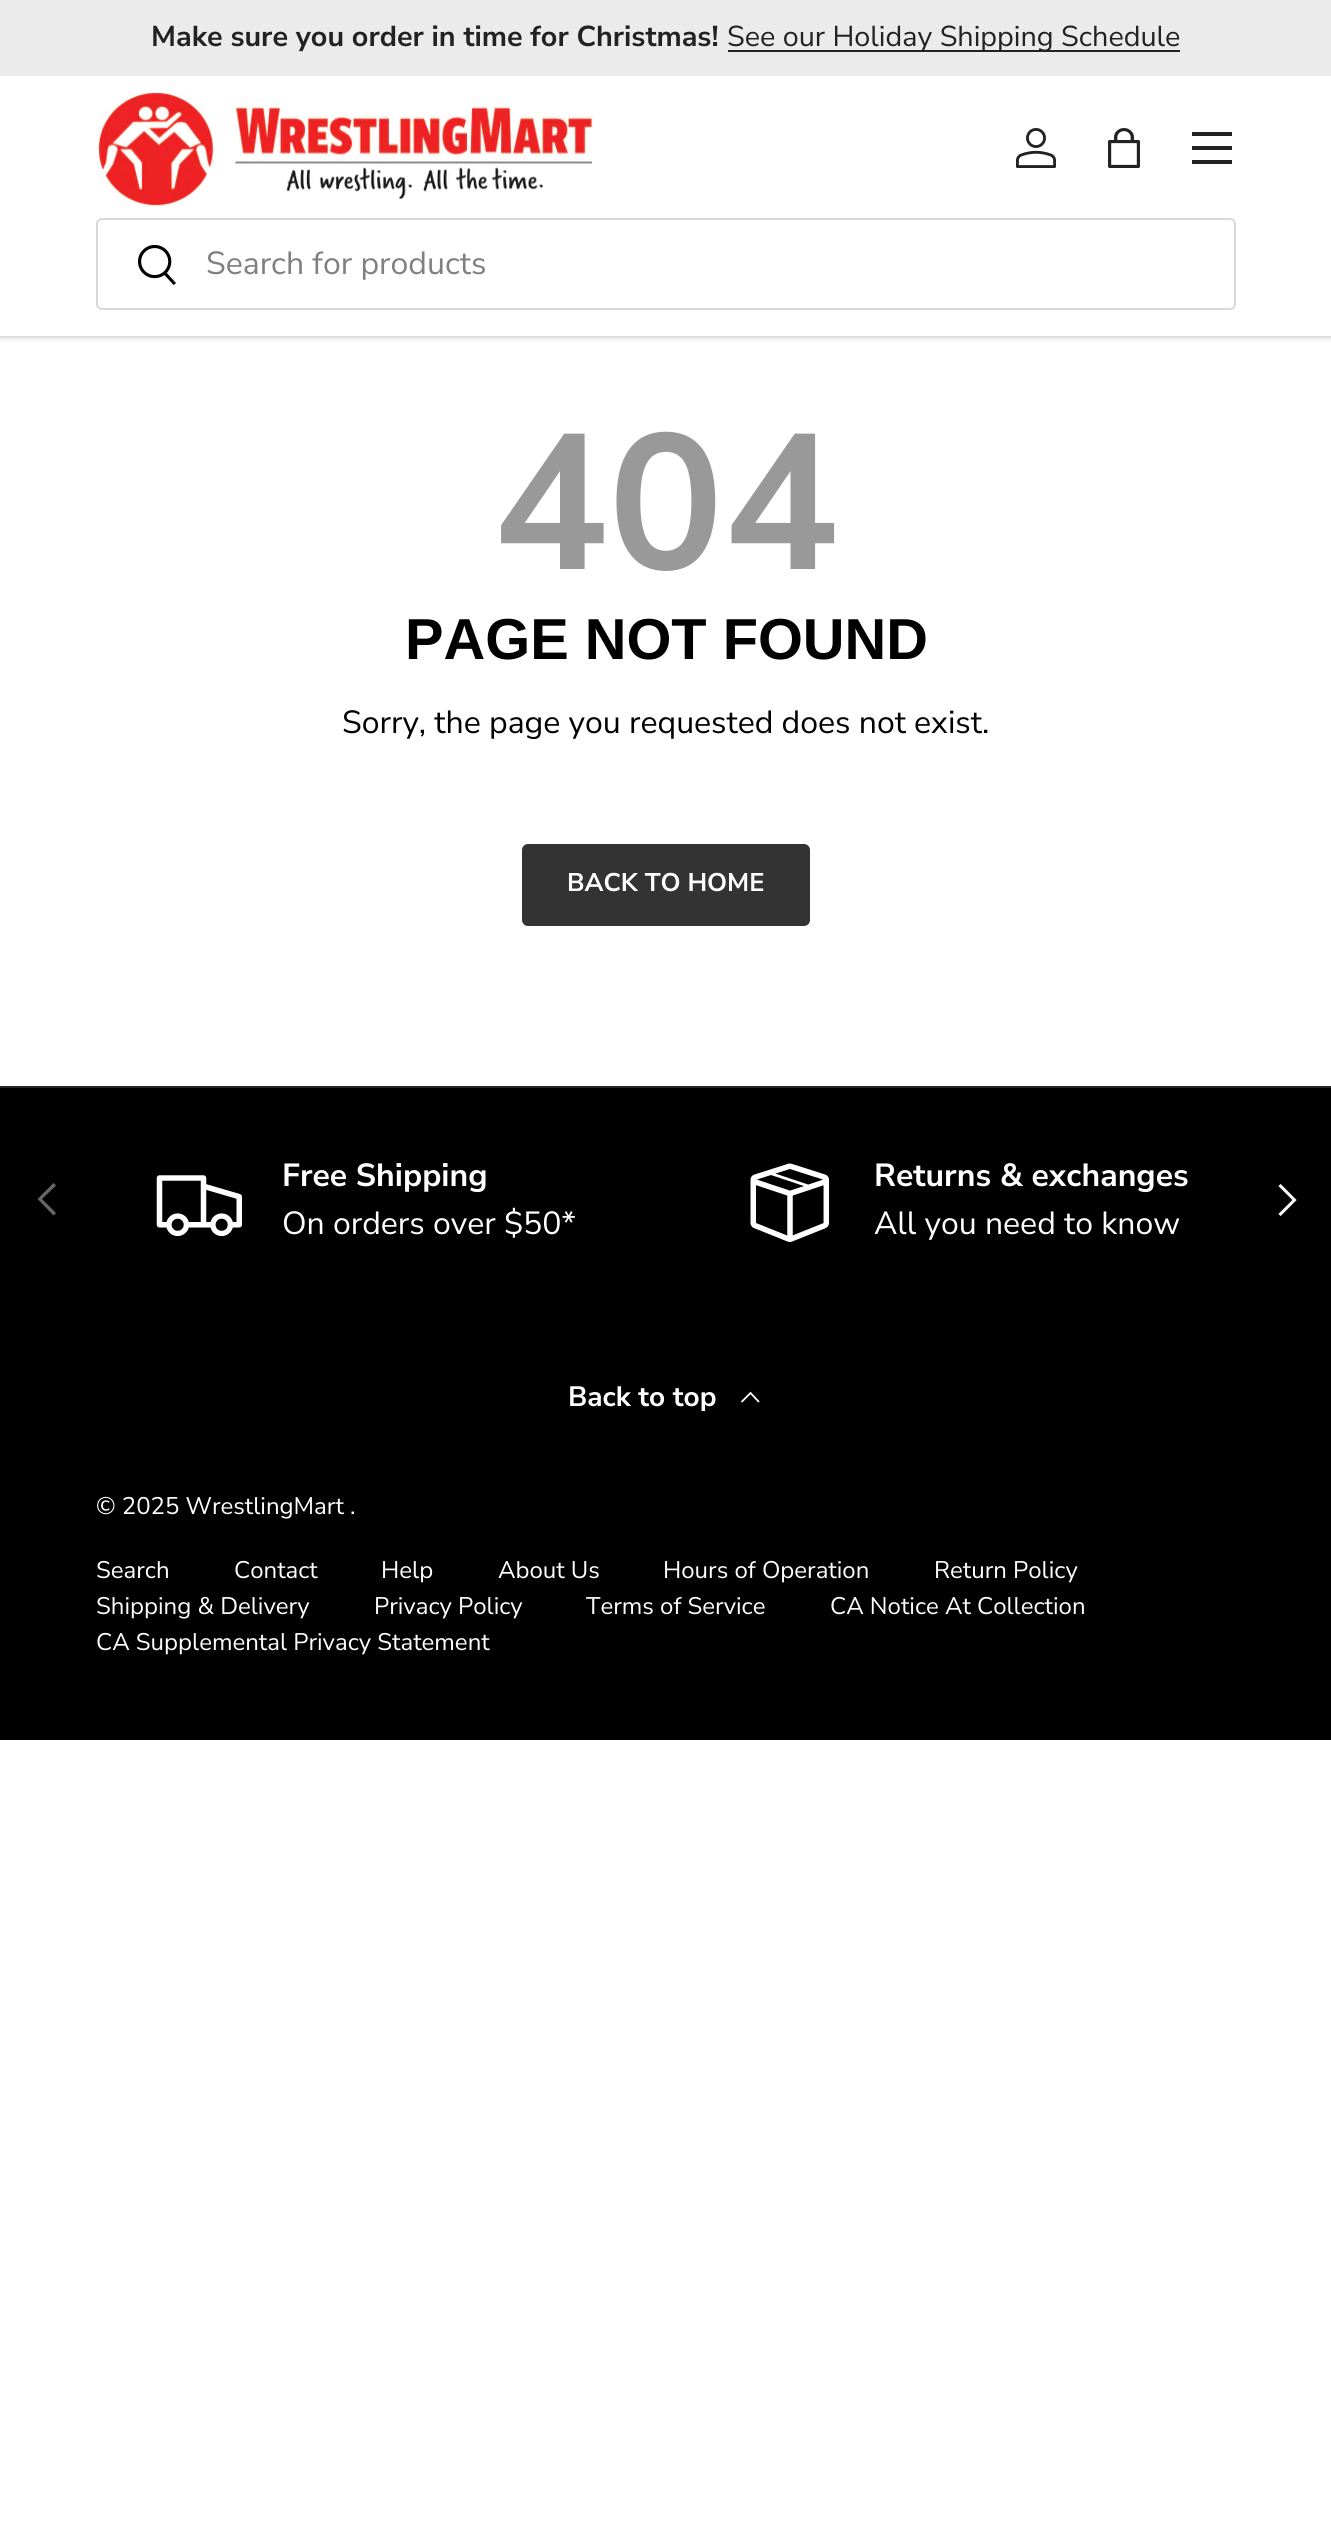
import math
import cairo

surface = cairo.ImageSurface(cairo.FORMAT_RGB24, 1331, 2545)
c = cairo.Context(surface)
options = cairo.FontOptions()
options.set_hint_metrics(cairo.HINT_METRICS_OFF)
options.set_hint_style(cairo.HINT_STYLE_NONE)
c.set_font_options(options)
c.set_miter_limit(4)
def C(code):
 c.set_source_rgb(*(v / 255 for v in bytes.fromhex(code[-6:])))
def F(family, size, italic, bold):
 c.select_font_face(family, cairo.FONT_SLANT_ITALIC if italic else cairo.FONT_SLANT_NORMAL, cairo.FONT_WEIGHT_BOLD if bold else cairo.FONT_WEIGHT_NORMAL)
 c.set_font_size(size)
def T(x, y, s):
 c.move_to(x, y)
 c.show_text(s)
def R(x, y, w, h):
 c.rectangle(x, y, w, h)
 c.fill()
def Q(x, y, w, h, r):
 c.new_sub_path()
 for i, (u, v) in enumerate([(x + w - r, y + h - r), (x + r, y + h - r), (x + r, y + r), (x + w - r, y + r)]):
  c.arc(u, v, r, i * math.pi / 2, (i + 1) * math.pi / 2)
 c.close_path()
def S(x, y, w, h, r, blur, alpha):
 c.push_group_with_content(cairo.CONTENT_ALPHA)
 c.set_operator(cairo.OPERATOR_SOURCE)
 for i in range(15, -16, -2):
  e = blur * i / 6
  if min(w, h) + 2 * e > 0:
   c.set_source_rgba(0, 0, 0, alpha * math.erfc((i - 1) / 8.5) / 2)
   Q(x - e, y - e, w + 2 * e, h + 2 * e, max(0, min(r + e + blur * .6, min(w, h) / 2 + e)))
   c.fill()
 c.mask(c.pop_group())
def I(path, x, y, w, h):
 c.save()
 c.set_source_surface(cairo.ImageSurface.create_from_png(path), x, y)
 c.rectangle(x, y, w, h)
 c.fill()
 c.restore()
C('ffffff')
c.paint()
c.save()
c.rectangle(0,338,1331,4)
c.clip()
C('000000')
S(-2,74,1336,266,0,3,.08)
c.restore()
C('ebebeb')
R(0,0,1331,76)
F('Nunito Sans',28.75,0,1)
C('222222')
T(151,46,'Make sure you order in time for Christmas!')
R(728,50,452,2)
F('Nunito Sans',28.75,0,0)
T(727,46,'See our Holiday Shipping Schedule')
I('1.png',96,92,497,114)
I('2.png',1016,128,40,40)
I('3.png',1108,128,32,40)
R(1192,132,40,4)
R(1192,160,40,4)
R(1192,146,40,4)
Q(97,219,1138,90,5)
C('d9d9d9')
c.stroke()
I('4.png',138,244,38,41)
F('Nunito Sans',32,0,0)
C('808080')
T(206,274,'Search for products')
C('dedede')
R(0,336,1331,2)
F('Nunito Sans',192,0,1)
C('999999')
T(493,569,'404')
F('Liberation Sans',57.75,0,1)
C('000000')
T(405,659,'PAGE NOT FOUND')
F('Nunito Sans',32,0,0)
T(342,733,'Sorry, the page you requested does not exist.')
gradient = cairo.LinearGradient(-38,781,794,989)
gradient.add_color_stop_rgba(.6,0.353,0.353,0.353,1)
gradient.add_color_stop_rgba(.6,0.2,0.2,0.2,1)
gradient.add_color_stop_rgba(1,0.2,0.2,0.2,1)
c.set_source(gradient)
Q(522,844,288,82,6)
c.fill()
F('Nunito Sans',25.5,0,1)
C('ffffff')
T(567,891,'BACK TO HOME')
C('000000')
R(0,1088,1331,652)
C('262626')
R(0,1086,1331,2)
I('5.png',156,1175,86,62)
F('Nunito Sans',32,0,1)
C('ffffff')
T(282,1186,'Free Shipping')
F('Nunito Sans',32,0,0)
T(282,1234,'On orders over $50*')
I('6.png',750,1163,80,79)
F('Nunito Sans',32,0,1)
T(874,1186,'Returns & exchanges')
F('Nunito Sans',32,0,0)
T(874,1234,'All you need to know')
C('666666')
c.new_path()
c.move_to(37.5,1199)
c.line_to(53.5,1183)
c.line_to(56,1185.5)
c.line_to(42,1199)
c.line_to(56,1213)
c.line_to(53.5,1215.5)
c.close_path()
c.fill()
c.new_path()
c.move_to(1279.5,1185)
c.line_to(1294.5,1200)
c.line_to(1279.5,1215)
C('ffffff')
c.set_line_width(3)
c.stroke()
F('Nunito Sans',28,0,1)
T(568,1406,'Back to top')
c.new_path()
c.move_to(741.5,1402)
c.line_to(750.5,1393)
c.line_to(759,1402)
c.set_line_width(1.8)
c.stroke()
F('Nunito Sans',24,0,0)
T(96,1514,'© 2025 WrestlingMart .')
T(96,1578,'Search')
T(234,1578,'Contact')
T(381,1578,'Help')
T(498,1578,'About Us')
T(663,1578,'Hours of Operation')
T(934,1578,'Return Policy')
T(96,1614,'Shipping & Delivery')
T(374,1614,'Privacy Policy')
T(586,1614,'Terms of Service')
T(830,1614,'CA Notice At Collection')
T(96,1650,'CA Supplemental Privacy Statement')
surface.write_to_png('o.png')
